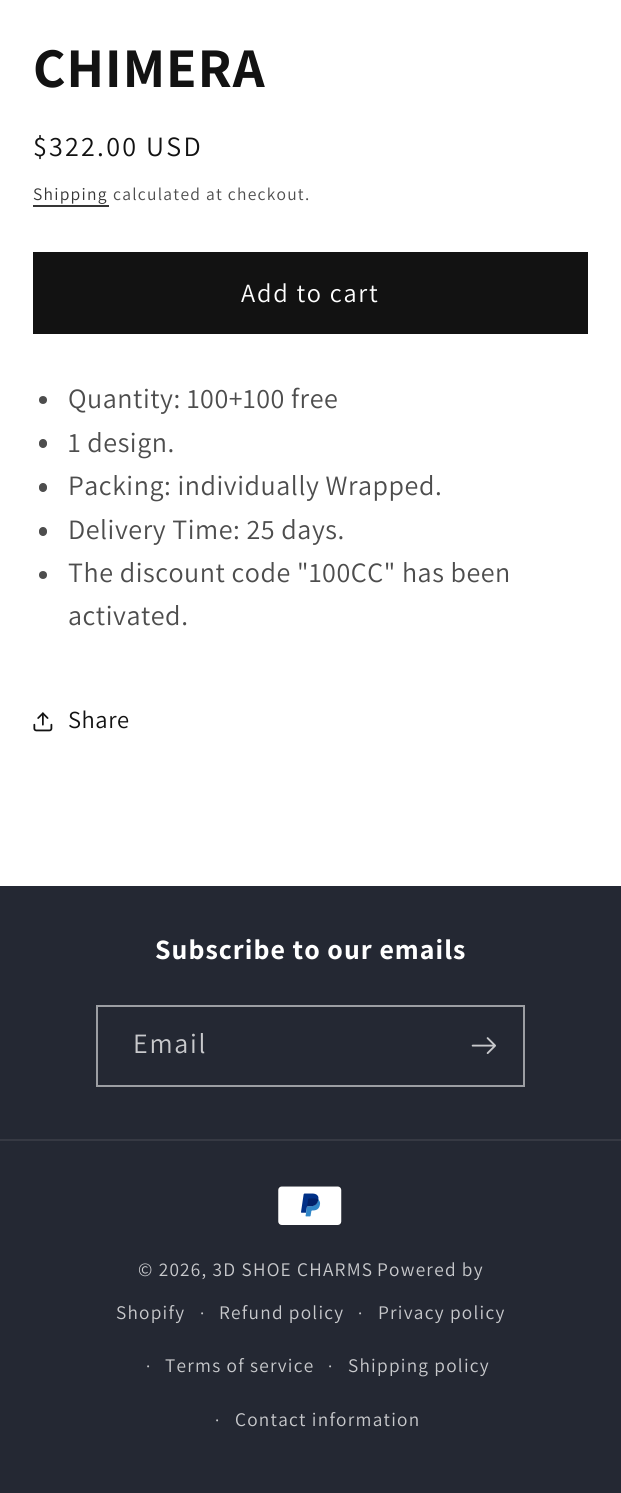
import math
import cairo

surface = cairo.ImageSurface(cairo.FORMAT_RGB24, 621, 1493)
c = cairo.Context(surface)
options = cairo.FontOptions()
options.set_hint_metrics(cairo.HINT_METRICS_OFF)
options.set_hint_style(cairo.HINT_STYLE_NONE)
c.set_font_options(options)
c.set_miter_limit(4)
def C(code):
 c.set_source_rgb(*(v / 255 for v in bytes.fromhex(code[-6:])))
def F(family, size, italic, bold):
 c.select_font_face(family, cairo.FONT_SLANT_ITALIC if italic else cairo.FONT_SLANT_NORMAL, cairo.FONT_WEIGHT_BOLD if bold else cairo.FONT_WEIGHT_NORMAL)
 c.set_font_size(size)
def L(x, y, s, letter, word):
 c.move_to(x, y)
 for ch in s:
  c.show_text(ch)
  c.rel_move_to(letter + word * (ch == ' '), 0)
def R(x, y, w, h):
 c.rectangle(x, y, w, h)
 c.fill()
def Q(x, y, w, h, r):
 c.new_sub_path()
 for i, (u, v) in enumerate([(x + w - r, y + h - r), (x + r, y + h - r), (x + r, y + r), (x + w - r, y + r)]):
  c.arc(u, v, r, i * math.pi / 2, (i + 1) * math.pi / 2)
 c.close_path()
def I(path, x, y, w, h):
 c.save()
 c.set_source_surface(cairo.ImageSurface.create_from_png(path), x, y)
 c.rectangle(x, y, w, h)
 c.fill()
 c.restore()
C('ffffff')
c.paint()
F('Assistant',56,0,1)
C('121212')
L(33,87,'CHIMERA',1.05,0)
F('Assistant',28,0,0)
L(33,156,'$322.00 USD',2.25,0)
F('Assistant',17.5,0,0)
C('363636')
L(33,200,'Shipping',1.25,0)
R(33,205,76,2)
C('4d4d4d')
L(113,200,'calculated at checkout.',1.25,0)
C('121212')
R(33,252,555,82)
F('Assistant',26.25,0,0)
C('ffffff')
L(241,302,'Add to cart',1.75,0)
C('4d4d4d')
c.new_path()
c.arc(43,400,4,0,2 * math.pi)
c.fill()
F('Assistant',28,0,0)
L(68,408,'Quantity: 100+100 free',.55,0)
Q(39,439,8,9,4)
c.fill()
L(68,452,'1 design.',.55,0)
Q(39,483,8,9,4)
c.fill()
L(68,495,'Packing: individually Wrapped.',.55,0)
Q(39,527,8,9,4)
c.fill()
L(68,539,'Delivery Time: 25 days.',.55,0)
c.new_path()
c.arc(43,575,4,0,2 * math.pi)
c.fill()
L(68,582,'The discount code "100CC" has been',.55,0)
L(68,625,'activated.',.55,0)
I('1.png',33,712,20,20)
F('Assistant',24.5,0,0)
C('121212')
L(68,728,'Share',.55,0)
C('242833')
R(0,886,621,607)
F('Assistant',28,0,1)
C('ffffff')
L(155,959,'Subscribe to our emails',1.05,0)
c.rectangle(97,1006,427,80)
C('9c9ea3')
c.stroke()
F('Assistant',28,0,0)
C('c8c9cc')
L(133,1053,'Email',1.75,0)
I('2.png',471,1037,25,17)
C('363943')
R(0,1139,621,2)
I('3.png',278,1186,64,39)
F('Assistant',19.25,0,0)
C('c8c9cc')
L(138,1276,'© 2026, 3D SHOE CHARMS',1.25,0)
L(377,1276,'Powered by',1.25,0)
L(116,1319,'Shopify',1.25,0)
F('Assistant',17.5,0,0)
L(200,1319,'·',1.25,0)
F('Assistant',19.25,0,0)
L(219,1319,'Refund policy',1.25,0)
F('Assistant',17.5,0,0)
L(358,1319,'·',1.25,0)
F('Assistant',19.25,0,0)
L(378,1319,'Privacy policy',1.25,0)
F('Assistant',17.5,0,0)
L(146,1372,'·',1.25,0)
F('Assistant',19.25,0,0)
L(165,1372,'Terms of service',1.25,0)
F('Assistant',17.5,0,0)
L(328,1372,'·',1.25,0)
F('Assistant',19.25,0,0)
L(348,1372,'Shipping policy',1.25,0)
F('Assistant',17.5,0,0)
L(215,1426,'·',1.25,0)
F('Assistant',19.25,0,0)
L(235,1426,'Contact information',1.25,0)
surface.write_to_png('o.png')
